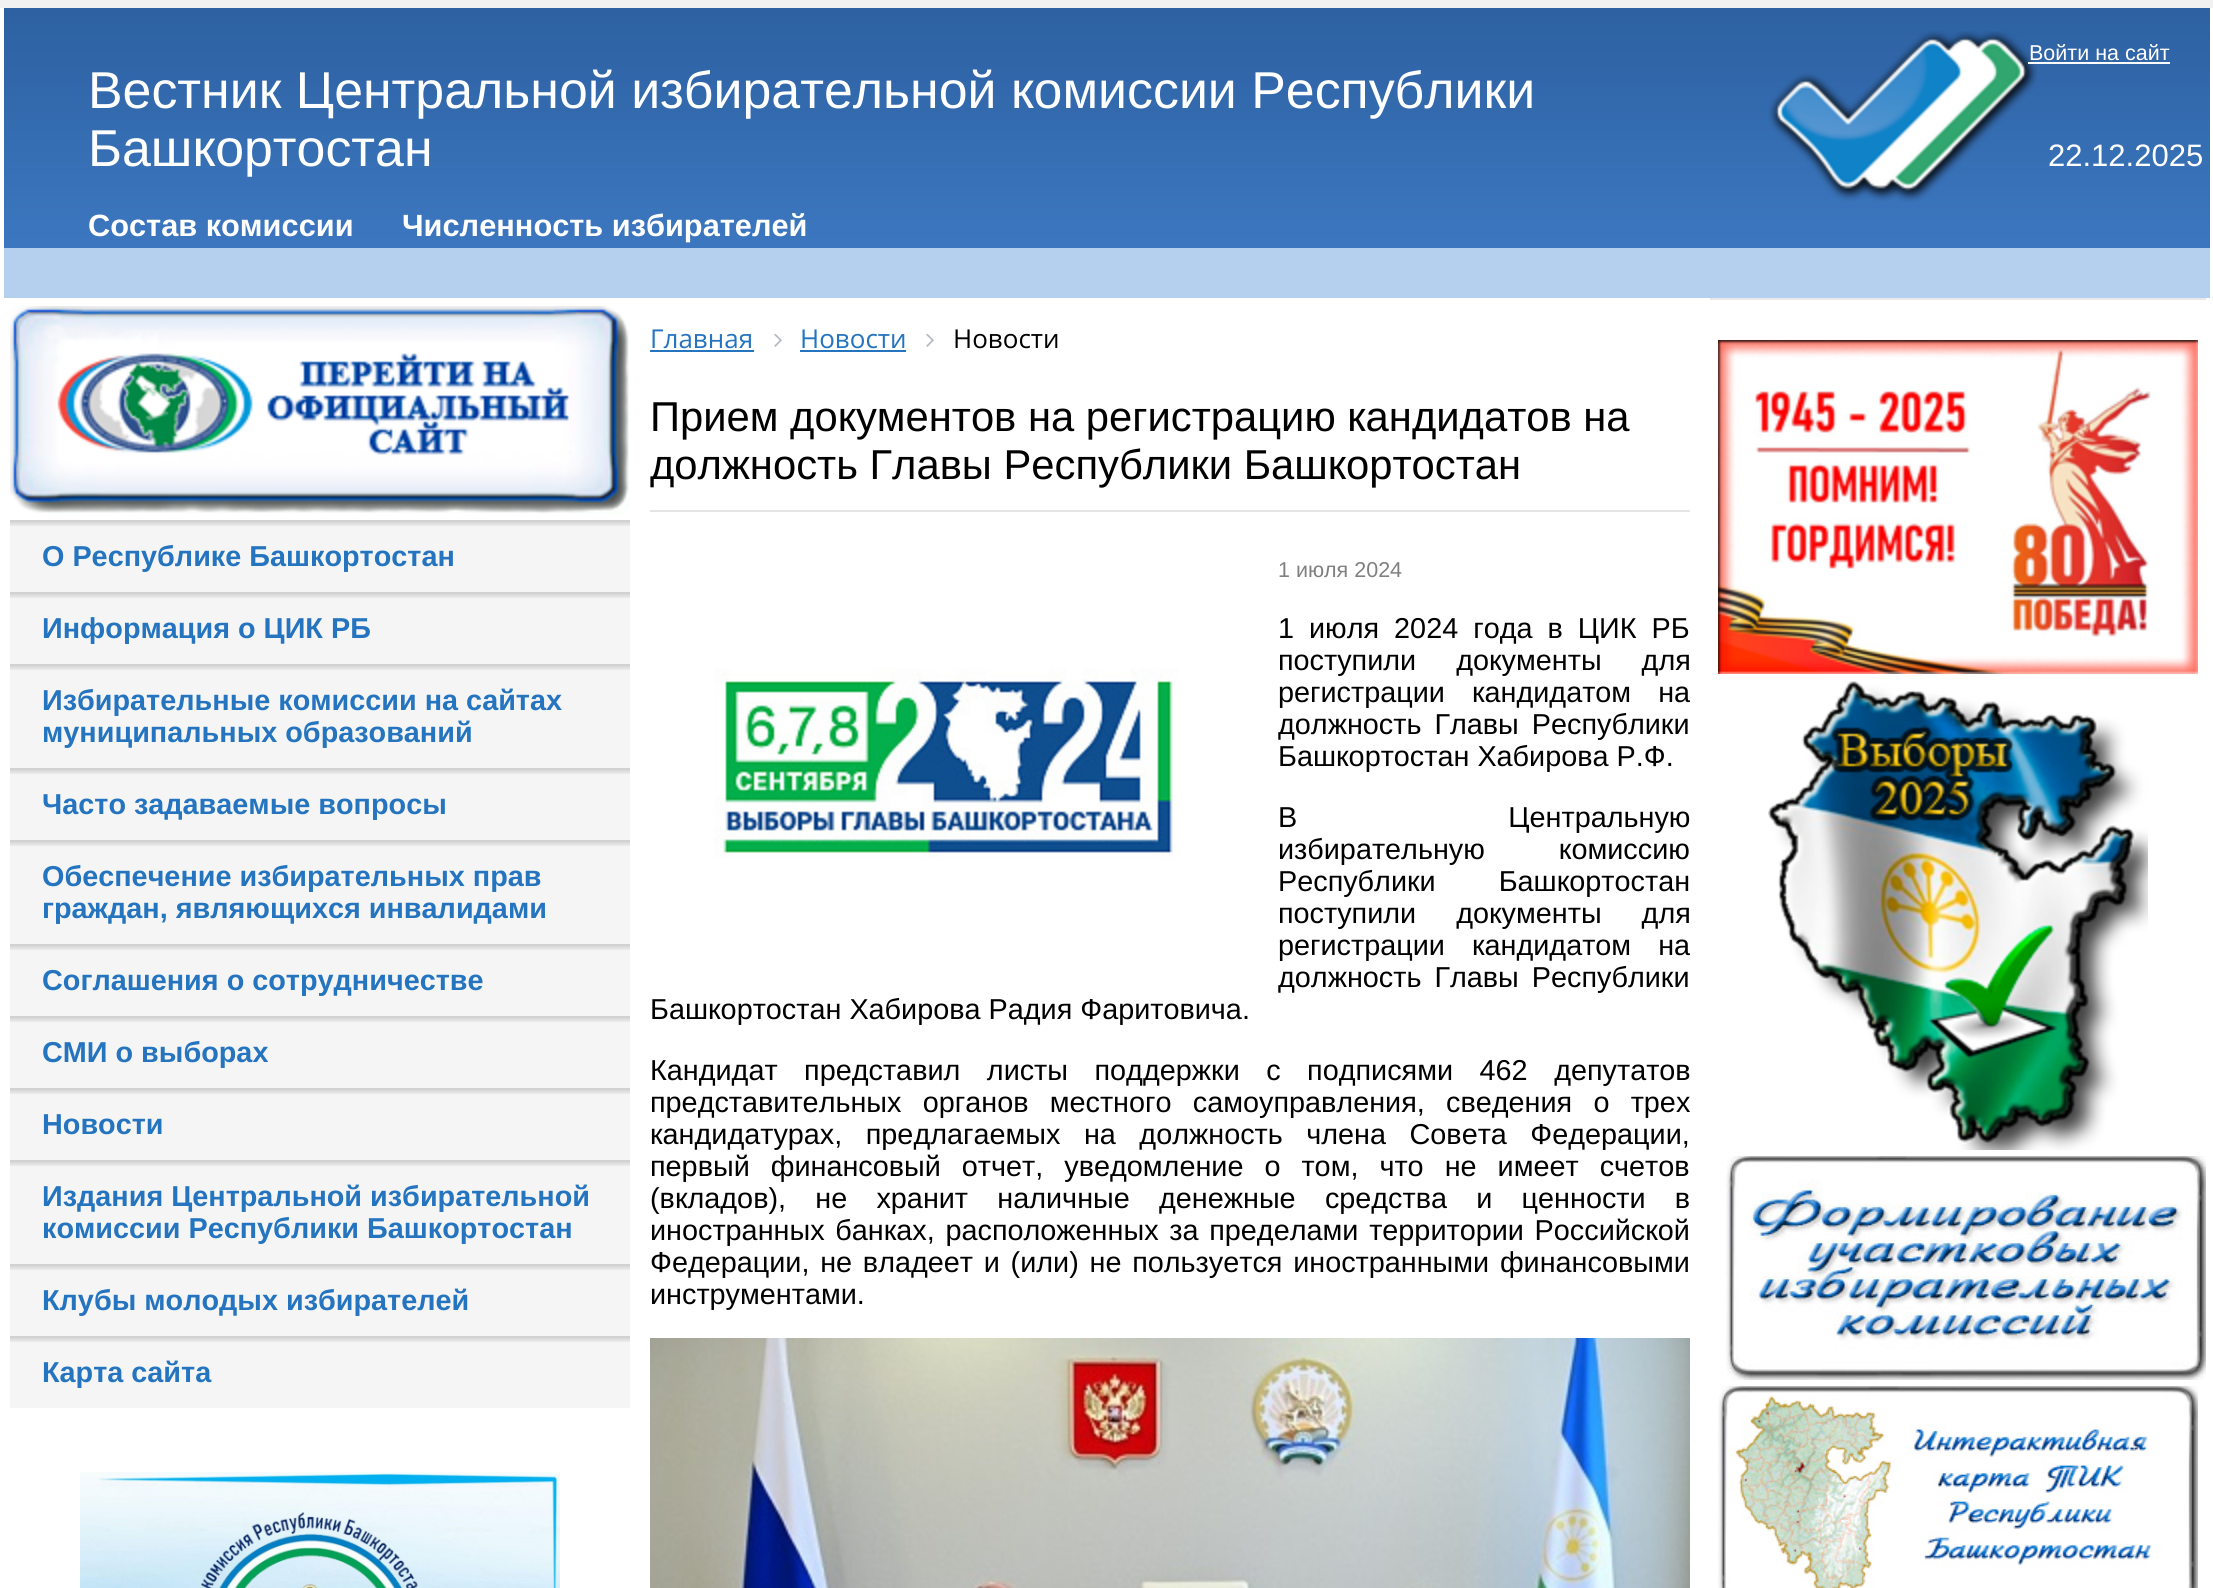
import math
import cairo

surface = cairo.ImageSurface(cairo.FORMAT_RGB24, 2213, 1588)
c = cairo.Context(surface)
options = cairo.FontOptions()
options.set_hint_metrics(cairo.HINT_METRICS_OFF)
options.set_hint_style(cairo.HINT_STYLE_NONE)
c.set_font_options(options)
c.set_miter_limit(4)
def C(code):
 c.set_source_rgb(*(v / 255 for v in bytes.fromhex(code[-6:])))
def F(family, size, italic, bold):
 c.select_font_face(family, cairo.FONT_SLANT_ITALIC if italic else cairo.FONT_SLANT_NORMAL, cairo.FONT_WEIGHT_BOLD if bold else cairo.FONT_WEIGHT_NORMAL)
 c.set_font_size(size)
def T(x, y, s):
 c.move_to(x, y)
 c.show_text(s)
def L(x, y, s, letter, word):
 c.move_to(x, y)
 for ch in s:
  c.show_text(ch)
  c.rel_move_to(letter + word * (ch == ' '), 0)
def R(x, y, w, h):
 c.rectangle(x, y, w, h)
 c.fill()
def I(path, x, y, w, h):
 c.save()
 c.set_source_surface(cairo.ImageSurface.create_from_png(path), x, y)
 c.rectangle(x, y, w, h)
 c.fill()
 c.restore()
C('f1f1f1')
c.paint()
C('ffffff')
R(0,8,2213,1580)
C('b5cfee')
R(4,248,2206,50)
I('1.png',4,8,2206,240)
I('2.png',1768,31,269,171)
F('Liberation Sans',21.5,0,0)
C('ffffff')
T(2029,60,'Войти на сайт')
R(2028,62,142,2)
F('Liberation Sans',51.85,0,0)
T(88,108,'Вестник Центральной избирательной комиссии Республики')
T(88,166,'Башкортостан')
F('Liberation Sans',31,0,0)
T(2048,166,'22.12.2025')
F('Liberation Sans',30.75,0,1)
T(88,236,'Состав комиссии')
T(402,236,'Численность избирателей')
I('3.png',10,306,620,208)
C('f5f5f5')
R(10,526,620,66)
I('4.png',10,520,620,6)
F('Liberation Sans',28.8,0,1)
C('2474bf')
T(42,566,'О Республике Башкортостан')
C('f5f5f5')
R(10,598,620,66)
I('4.png',10,592,620,6)
C('2474bf')
T(42,638,'Информация о ЦИК РБ')
C('f5f5f5')
R(10,670,620,98)
I('4.png',10,664,620,6)
C('2474bf')
T(42,710,'Избирательные комиссии на сайтах')
T(42,742,'муниципальных образований')
C('f5f5f5')
R(10,774,620,66)
I('4.png',10,768,620,6)
C('2474bf')
T(42,814,'Часто задаваемые вопросы')
C('f5f5f5')
R(10,846,620,98)
I('4.png',10,840,620,6)
C('2474bf')
T(42,886,'Обеспечение избирательных прав')
T(42,918,'граждан, являющихся инвалидами')
C('f5f5f5')
R(10,950,620,66)
I('4.png',10,944,620,6)
C('2474bf')
T(42,990,'Соглашения о сотрудничестве')
C('f5f5f5')
R(10,1022,620,66)
I('4.png',10,1016,620,6)
C('2474bf')
T(42,1062,'СМИ о выборах')
C('f5f5f5')
R(10,1094,620,66)
I('4.png',10,1088,620,6)
C('2474bf')
T(42,1134,'Новости')
C('f5f5f5')
R(10,1166,620,98)
I('4.png',10,1160,620,6)
C('2474bf')
T(42,1206,'Издания Центральной избирательной')
T(42,1238,'комиссии Республики Башкортостан')
C('f5f5f5')
R(10,1270,620,66)
I('4.png',10,1264,620,6)
C('2474bf')
T(42,1310,'Клубы молодых избирателей')
C('f5f5f5')
R(10,1342,620,66)
I('4.png',10,1336,620,6)
C('2474bf')
T(42,1382,'Карта сайта')
I('5.png',80,1472,480,116)
F('Open Sans',26,0,0)
T(650,348,'Главная')
R(650,350,104,2)
I('6.png',774,333,8,14)
T(800,348,'Новости')
R(800,350,106,2)
I('6.png',926,333,8,14)
C('000000')
T(953,348,'Новости')
C('e5e5e5')
R(650,510,1040,2)
F('Liberation Sans',41.75,0,0)
C('000000')
T(650,431,'Прием документов на регистрацию кандидатов на')
T(650,479,'должность Главы Республики Башкортостан')
F('Liberation Sans',21.5,0,0)
C('7f7f7f')
T(1278,577,'1 июля 2024')
F('Liberation Sans',28.8,0,0)
C('000000')
L(1278,638,'1 июля 2024 года в ЦИК РБ',0,7)
L(1278,670,'поступили документы для',0,32)
L(1278,702,'регистрации кандидатом на',0,19)
L(1278,734,'должность Главы Республики',0,5)
T(1278,766,'Башкортостан Хабирова Р.Ф.')
L(1278,827,'В Центральную',0,203)
L(1278,859,'избирательную комиссию',0,66)
L(1278,891,'Республики Башкортостан',0,55)
L(1278,923,'поступили документы для',0,32)
L(1278,955,'регистрации кандидатом на',0,19)
L(1278,987,'должность Главы Республики',0,5)
T(650,1019,'Башкортостан Хабирова Радия Фаритовича.')
L(650,1080,'Кандидат представил листы поддержки с подписями 462 депутатов',0,18.5)
L(650,1112,'представительных органов местного самоуправления, сведения о трех',0,13.25)
L(650,1144,'кандидатурах, предлагаемых на должность члена Совета Федерации,',0,15.5)
L(650,1176,'первый финансовый отчет, уведомление о том, что не имеет счетов',0,13)
L(650,1208,'(вкладов), не хранит наличные денежные средства и ценности в',0,21.25)
L(650,1240,'иностранных банках, расположенных за пределами территории Российской',0,2.75)
L(650,1272,'Федерации, не владеет и (или) не пользуется иностранными финансовыми',0,2.75)
T(650,1304,'инструментами.')
I('7.png',650,1338,1040,250)
I('8.png',714,668,464,191)
C('e9e9e9')
R(1710,298,496,2)
I('9.png',1718,340,480,334)
I('10.png',1768,681,380,469)
I('11.png',1726,1156,480,224)
I('12.png',1718,1386,480,202)
surface.write_to_png('o.png')
